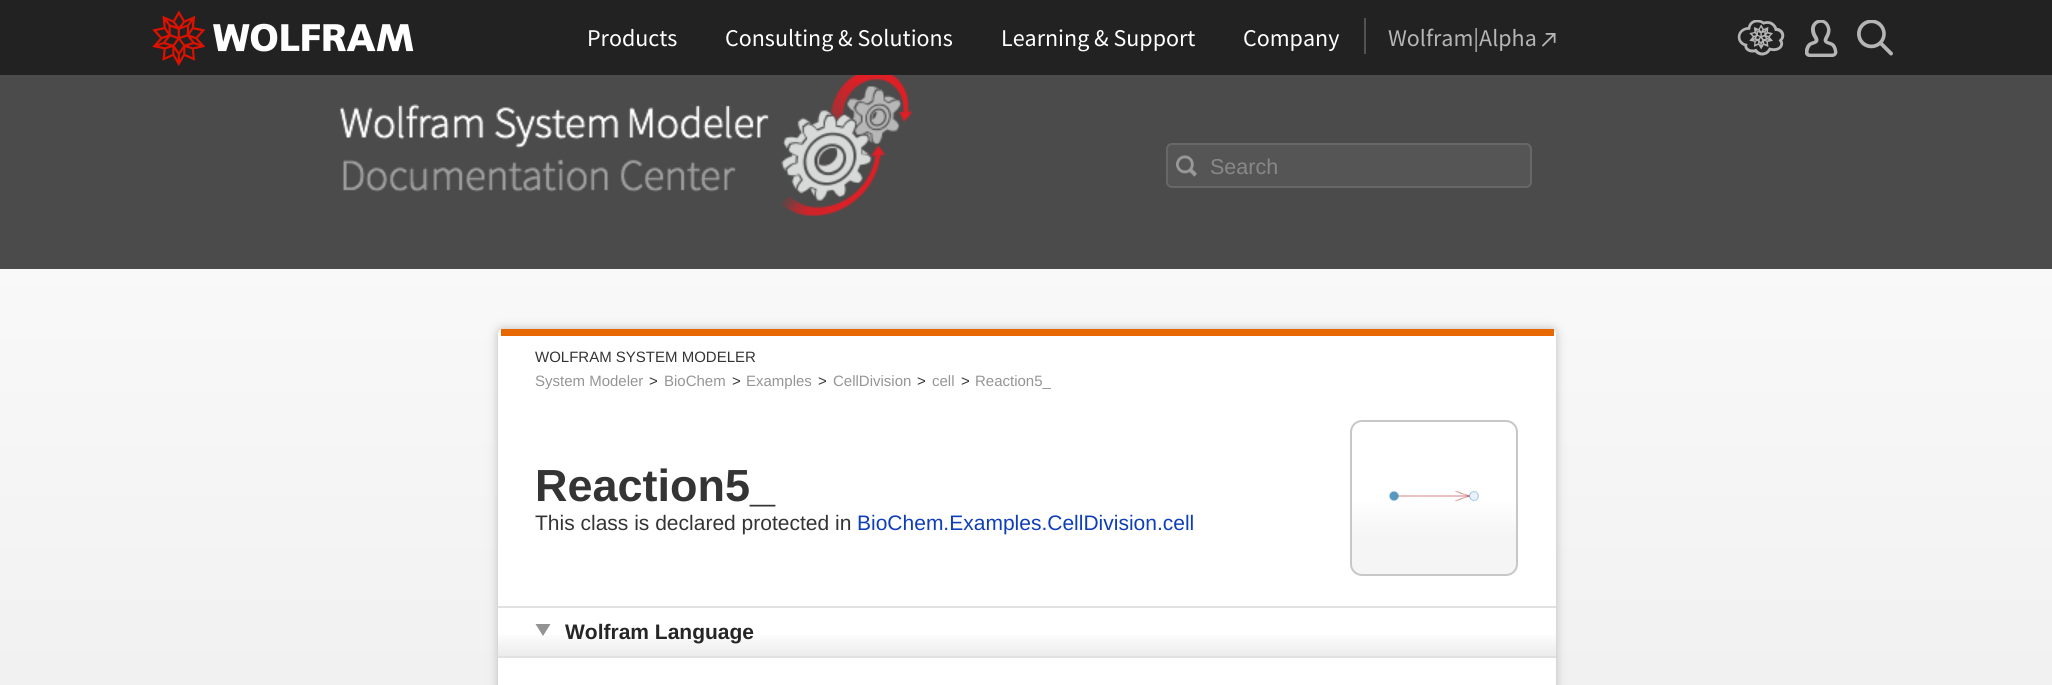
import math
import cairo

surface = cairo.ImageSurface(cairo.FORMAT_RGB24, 2052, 685)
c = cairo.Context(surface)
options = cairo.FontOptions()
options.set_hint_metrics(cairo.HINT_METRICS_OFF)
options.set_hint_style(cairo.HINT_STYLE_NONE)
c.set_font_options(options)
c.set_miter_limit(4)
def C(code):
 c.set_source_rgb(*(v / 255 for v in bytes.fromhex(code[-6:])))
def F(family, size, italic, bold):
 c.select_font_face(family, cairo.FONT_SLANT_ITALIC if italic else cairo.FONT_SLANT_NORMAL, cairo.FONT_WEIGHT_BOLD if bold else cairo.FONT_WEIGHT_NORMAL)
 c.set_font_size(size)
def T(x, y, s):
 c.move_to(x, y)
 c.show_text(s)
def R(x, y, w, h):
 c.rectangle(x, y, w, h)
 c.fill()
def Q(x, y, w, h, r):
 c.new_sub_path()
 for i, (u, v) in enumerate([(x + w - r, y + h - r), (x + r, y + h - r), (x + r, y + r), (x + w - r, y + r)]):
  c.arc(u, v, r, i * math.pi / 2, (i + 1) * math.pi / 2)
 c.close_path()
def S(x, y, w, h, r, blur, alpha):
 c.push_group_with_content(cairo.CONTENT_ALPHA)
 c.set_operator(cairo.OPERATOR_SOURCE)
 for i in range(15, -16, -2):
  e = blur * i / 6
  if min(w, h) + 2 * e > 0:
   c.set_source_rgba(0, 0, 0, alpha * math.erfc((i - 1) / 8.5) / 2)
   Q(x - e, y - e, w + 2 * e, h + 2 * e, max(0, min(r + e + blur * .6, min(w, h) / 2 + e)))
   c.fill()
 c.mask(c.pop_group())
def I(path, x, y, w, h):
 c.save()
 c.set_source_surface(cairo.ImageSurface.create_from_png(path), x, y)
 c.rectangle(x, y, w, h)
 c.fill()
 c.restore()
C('ffffff')
c.paint()
gradient = cairo.LinearGradient(1026,-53,1026,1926)
gradient.add_color_stop_rgba(0,1,1,1,1)
gradient.add_color_stop_rgba(.37,0.945,0.945,0.945,1)
c.set_source(gradient)
R(0,269,2052,416)
C('222222')
R(0,0,2052,75)
I('1.png',152,11,262,55)
F('Source Sans Pro',24,0,0)
C('ffffff')
T(587,46,'Products')
T(725,46,'Consulting & Solutions')
T(1001,46,'Learning & Support')
T(1243,46,'Company')
C('525252')
R(1364,18,2,36)
C('b5b5b5')
T(1388,46,'Wolfram|Alpha')
I('2.png',1542,33,14,14)
I('3.png',1737,20,48,36)
I('4.png',1805,20,33,37)
I('5.png',1857,20,36,36)
C('4b4b4b')
R(0,75,2052,194)
I('6.png',339,75,573,141)
C('555555')
Q(1167,144,364,43,5)
c.fill_preserve()
C('676767')
c.stroke()
I('7.png',1176,155,21,22)
F('Liberation Sans',21.5,0,0)
C('888888')
T(1210,174,'Search')
C('bbbbbb')
S(498,329,1058,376,5,5,1)
C('ffffff')
Q(498,329,1058,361,5)
c.fill()
C('e76801')
R(501,329,1053,7)
F('Liberation Sans',15,0,0)
C('343434')
T(535,362,'WOLFRAM SYSTEM MODELER')
C('959595')
T(535,386,'System Modeler')
C('343434')
T(649,386,'>')
C('959595')
T(664,386,'BioChem')
C('343434')
T(732,386,'>')
C('959595')
T(746,386,'Examples')
C('343434')
T(818,386,'>')
C('959595')
T(833,386,'CellDivision')
C('343434')
T(917,386,'>')
C('959595')
T(932,386,'cell')
C('343434')
T(961,386,'>')
C('959595')
T(975,386,'Reaction5_')
F('Liberation Sans',45,0,1)
C('343434')
T(535,501,'Reaction5_')
F('Liberation Sans',21,0,0)
T(535,530,'This class is declared protected in')
C('0e3eb9')
T(857,530,'BioChem.Examples.CellDivision.cell')
c.save()
Q(1350,420,168,156,12)
c.clip()
gradient = cairo.LinearGradient(1434,422,1434,575)
gradient.add_color_stop_rgba(.5,1,1,1,1)
gradient.add_color_stop_rgba(.75,0.961,0.961,0.961,1)
c.set_source(gradient)
R(1350,422,168,153)
c.restore()
Q(1351,421,166,154,11)
C('c7c7c7')
c.stroke()
I('8.png',1389,490,90,12)
gradient = cairo.LinearGradient(1027,607,1027,656)
gradient.add_color_stop_rgba(.5,1,1,1,1)
gradient.add_color_stop_rgba(1,0.925,0.925,0.925,1)
c.set_source(gradient)
R(498,635,1058,21)
C('e1e1e1')
R(498,606,1058,2)
R(498,656,1058,2)
C('939393')
c.new_path()
c.move_to(535.5,624)
c.line_to(550.5,624)
c.line_to(543,636)
c.close_path()
c.fill()
F('Liberation Sans',21,0,1)
C('262626')
T(565,639,'Wolfram Language')
surface.write_to_png('o.png')
